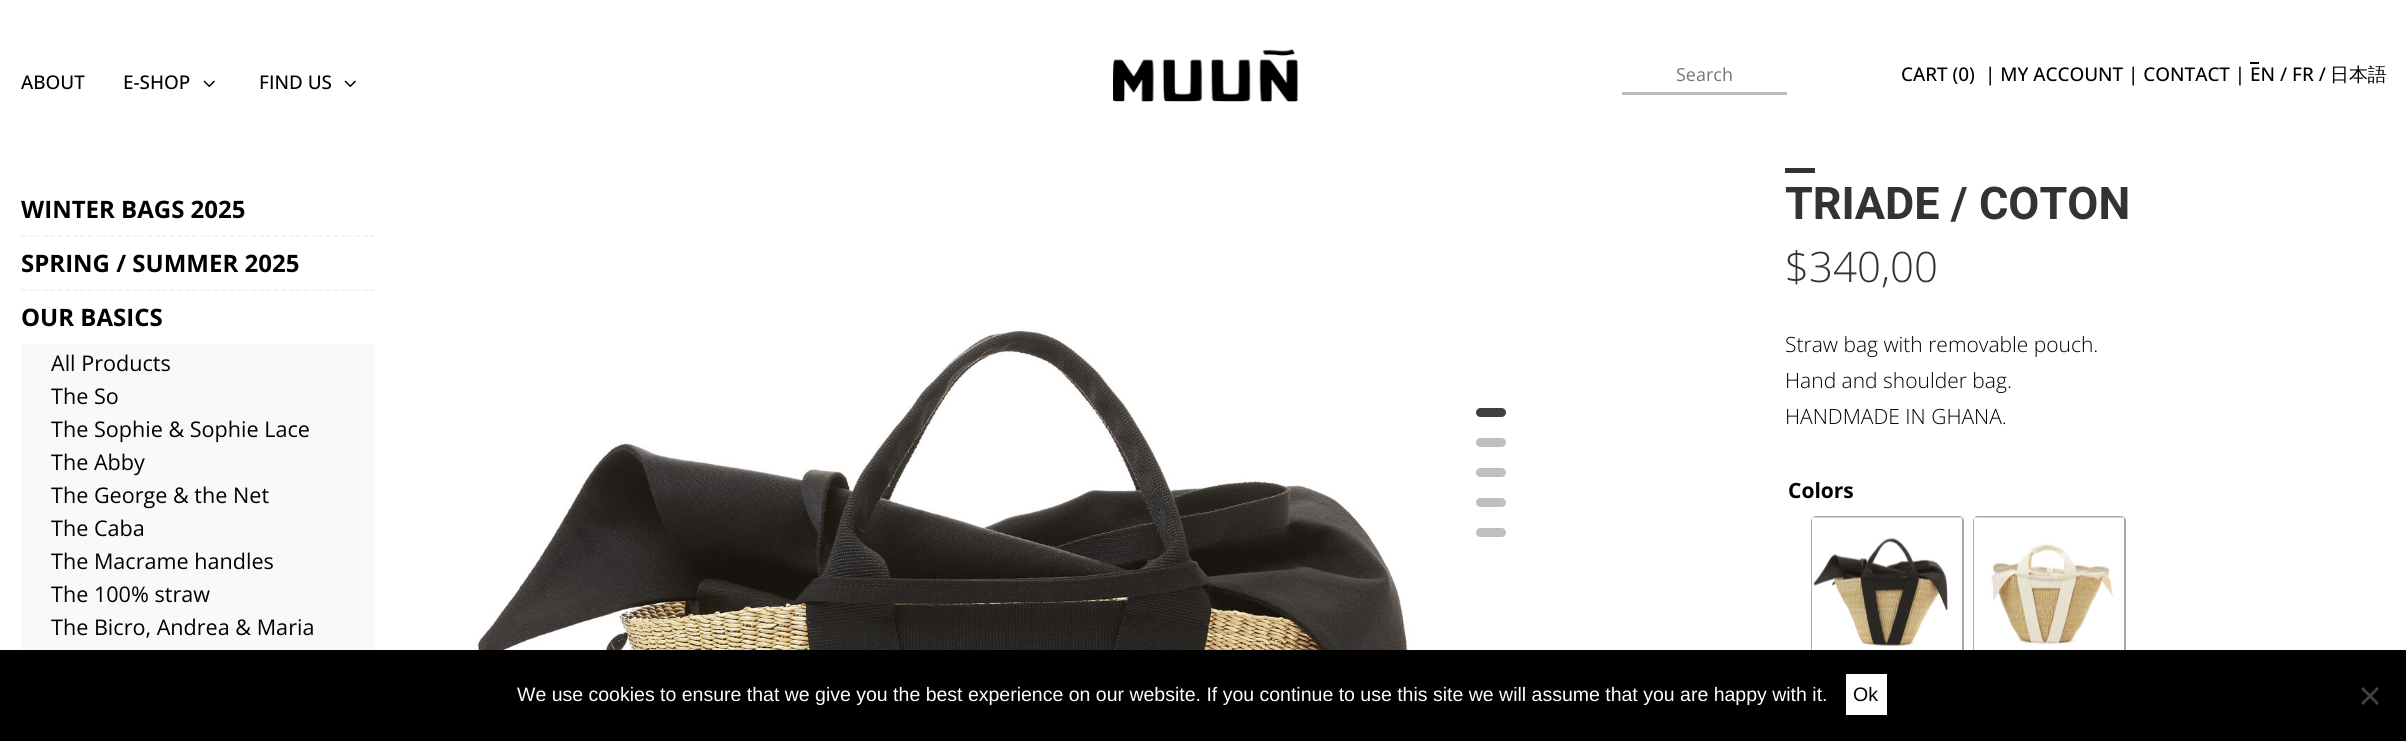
import math
import cairo

surface = cairo.ImageSurface(cairo.FORMAT_RGB24, 2406, 741)
c = cairo.Context(surface)
options = cairo.FontOptions()
options.set_hint_metrics(cairo.HINT_METRICS_OFF)
options.set_hint_style(cairo.HINT_STYLE_NONE)
c.set_font_options(options)
c.set_miter_limit(4)
def C(code):
 c.set_source_rgb(*(v / 255 for v in bytes.fromhex(code[-6:])))
def F(family, size, italic, bold):
 c.select_font_face(family, cairo.FONT_SLANT_ITALIC if italic else cairo.FONT_SLANT_NORMAL, cairo.FONT_WEIGHT_BOLD if bold else cairo.FONT_WEIGHT_NORMAL)
 c.set_font_size(size)
def T(x, y, s):
 c.move_to(x, y)
 c.show_text(s)
def R(x, y, w, h):
 c.rectangle(x, y, w, h)
 c.fill()
def Q(x, y, w, h, r):
 c.new_sub_path()
 for i, (u, v) in enumerate([(x + w - r, y + h - r), (x + r, y + h - r), (x + r, y + r), (x + w - r, y + r)]):
  c.arc(u, v, r, i * math.pi / 2, (i + 1) * math.pi / 2)
 c.close_path()
def I(path, x, y, w, h):
 c.save()
 c.set_source_surface(cairo.ImageSurface.create_from_png(path), x, y)
 c.rectangle(x, y, w, h)
 c.fill()
 c.restore()
C('ffffff')
c.paint()
F('Open Sans Medium',18.9,0,0)
C('000000')
T(21,89,'ABOUT')
T(123,89,'E-SHOP')
I('1.png',203,80,12,7)
T(259,89,'FIND US')
I('1.png',344,80,12,7)
I('2.png',1113,49,185,53)
R(2250,62,9,2)
C('bbbbbb')
R(1622,92,165,3)
F('Open Sans',18,0,0)
C('757575')
T(1676,81,'Search')
F('Open Sans Medium',18.9,0,0)
C('000000')
T(1901,81,'CART (0)')
T(1985,81,'| MY ACCOUNT | CONTACT | EN / FR /')
F('WenQuanYi Zen Hei Medium',18.9,0,0)
T(2330,81,'日本語')
c.new_path()
c.move_to(21,236)
c.line_to(375,236)
C('f0f0f0')
c.set_line_width(1.5)
c.set_dash([4.5,2.94])
c.stroke()
F('Open Sans',24,0,1)
C('000000')
T(21,218,'WINTER BAGS 2025')
c.new_path()
c.move_to(21,290)
c.line_to(375,290)
C('f0f0f0')
c.stroke()
C('000000')
T(21,272,'SPRING / SUMMER 2025')
T(21,326,'OUR BASICS')
C('f8f9fa')
R(21,344,354,306)
F('Open Sans',21.6,0,0)
C('000000')
T(51,371,'All Products')
T(51,404,'The So')
T(51,437,'The Sophie & Sophie Lace')
T(51,470,'The Abby')
T(51,503,'The George & the Net')
T(51,536,'The Caba')
T(51,569,'The Macrame handles')
T(51,602,'The 100% straw')
T(51,635,'The Bicro, Andrea & Maria')
I('3.png',476,329,936,321)
C('404040')
Q(1476,408,30,9,4.5)
c.fill()
C('bfbfbf')
Q(1476,438,30,9,4.5)
c.fill()
Q(1476,468,30,9,4.5)
c.fill()
Q(1476,498,30,9,4.5)
c.fill()
Q(1476,528,30,9,4.5)
c.fill()
C('333333')
R(1785,168,30,5)
F('Heebo',45,0,1)
T(1785,219,'TRIADE / COTON')
F('Open Sans Light',42,0,0)
T(1785,282,'$340,00')
F('Open Sans Light',21,0,0)
C('000000')
T(1785,352,'Straw bag with removable pouch.')
T(1785,388,'Hand and shoulder bag.')
T(1785,424,'HANDMADE IN GHANA.')
F('Open Sans',21,0,1)
T(1788,498,'Colors')
Q(1812,517,151,151,4)
C('a8a8a8')
c.set_line_width(2)
c.set_dash([])
c.stroke()
I('4.png',1812,517,150,133)
Q(1974,517,151,151,4)
c.stroke()
I('5.png',1974,517,150,133)
C('000000')
R(0,650,2406,91)
F('Liberation Sans',19.5,0,0)
C('ffffff')
T(517,701,'We use cookies to ensure that we give you the best experience on our website. If you continue to use this site we will assume that you are happy with it.')
R(1846,674,41,41)
C('000000')
T(1853,701,'Ok')
C('404040')
c.new_path()
c.move_to(2377,687)
c.line_to(2379,689)
c.line_to(2363,705)
c.line_to(2361,703)
c.close_path()
c.fill()
c.new_path()
c.move_to(2361,689)
c.line_to(2363,687)
c.line_to(2379,703)
c.line_to(2377,705)
c.close_path()
c.fill()
surface.write_to_png('o.png')
